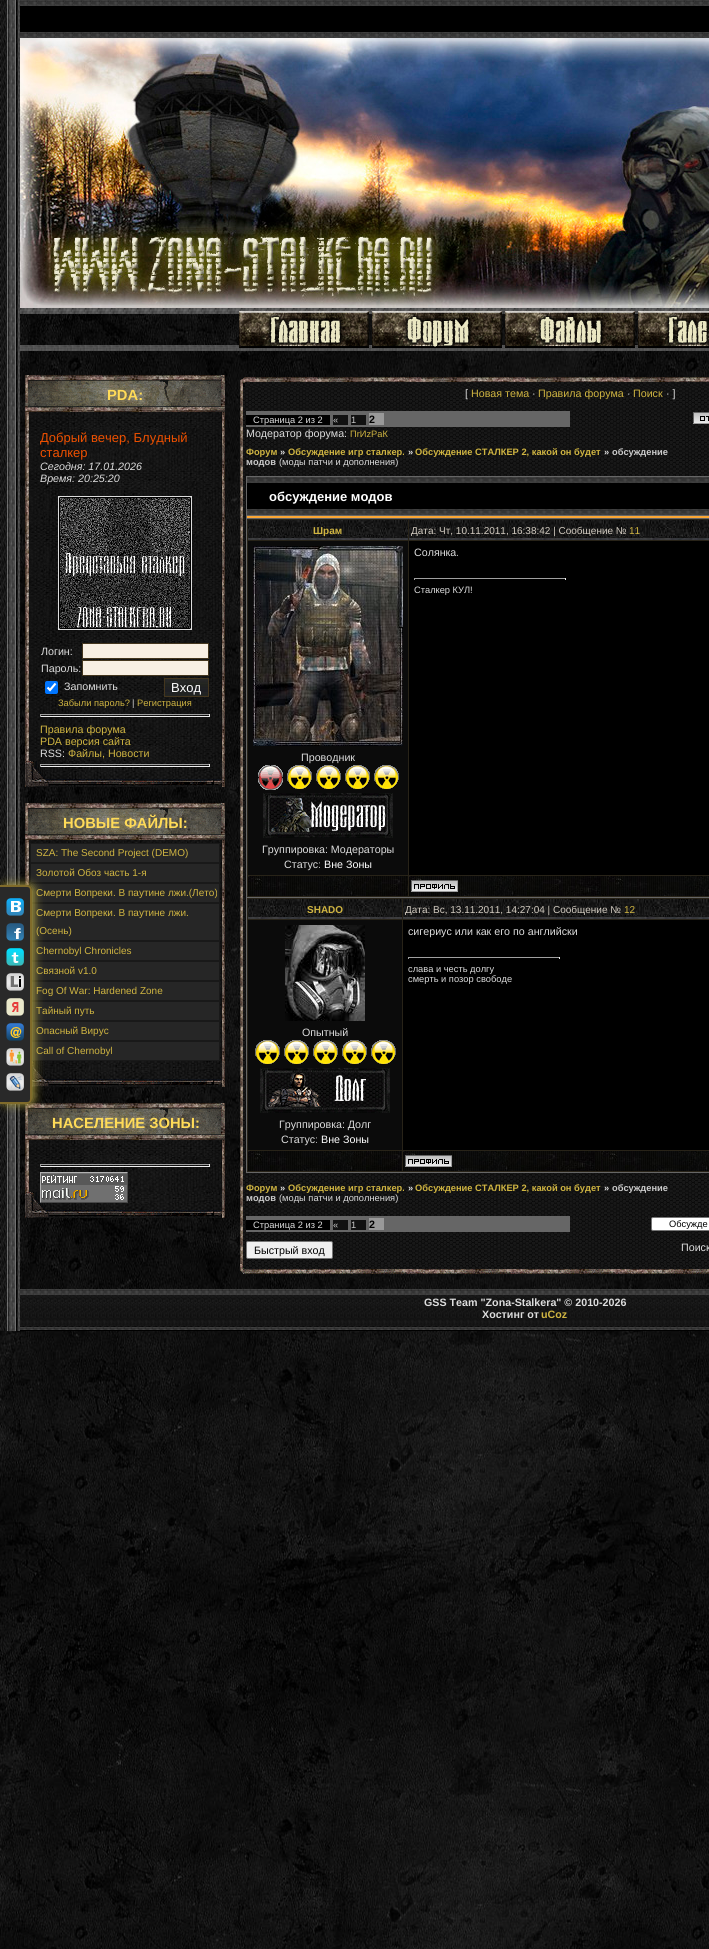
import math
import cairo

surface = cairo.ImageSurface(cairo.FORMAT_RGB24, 709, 1949)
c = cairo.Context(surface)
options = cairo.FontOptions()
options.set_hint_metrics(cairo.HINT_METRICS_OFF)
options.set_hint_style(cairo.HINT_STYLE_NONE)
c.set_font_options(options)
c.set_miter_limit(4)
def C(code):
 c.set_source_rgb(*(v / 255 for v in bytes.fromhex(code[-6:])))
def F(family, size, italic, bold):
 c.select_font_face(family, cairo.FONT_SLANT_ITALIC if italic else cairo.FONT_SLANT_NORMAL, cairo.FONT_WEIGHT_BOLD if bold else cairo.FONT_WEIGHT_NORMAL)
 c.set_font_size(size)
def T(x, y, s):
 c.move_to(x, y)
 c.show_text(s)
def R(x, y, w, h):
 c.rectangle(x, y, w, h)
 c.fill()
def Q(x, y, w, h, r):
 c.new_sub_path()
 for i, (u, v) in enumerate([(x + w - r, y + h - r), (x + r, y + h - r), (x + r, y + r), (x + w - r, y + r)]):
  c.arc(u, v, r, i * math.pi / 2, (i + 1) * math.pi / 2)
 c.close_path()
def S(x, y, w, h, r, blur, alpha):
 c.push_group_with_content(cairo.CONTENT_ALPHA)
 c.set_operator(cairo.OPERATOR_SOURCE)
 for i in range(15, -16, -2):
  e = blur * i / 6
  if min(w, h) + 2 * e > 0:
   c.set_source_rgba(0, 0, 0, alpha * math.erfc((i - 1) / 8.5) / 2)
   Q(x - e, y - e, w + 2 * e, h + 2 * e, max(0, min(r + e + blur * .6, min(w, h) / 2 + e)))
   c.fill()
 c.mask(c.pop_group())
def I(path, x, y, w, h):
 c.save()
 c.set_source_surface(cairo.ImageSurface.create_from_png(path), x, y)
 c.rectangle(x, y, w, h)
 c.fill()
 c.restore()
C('ffffff')
c.paint()
I('1.png',0,314,709,1635)
I('10.png',0,0,20,1331)
I('24.png',25,803,200,284)
C('262626')
c.rectangle(30.5,863.5,189,19)
c.fill_preserve()
C('191919')
c.set_line_width(1)
c.stroke()
C('262626')
c.rectangle(30.5,883.5,189,19)
c.fill_preserve()
C('191919')
c.stroke()
C('262626')
R(32,904,187,36)
c.rectangle(30.5,903.5,189,37)
C('191919')
c.stroke()
C('262626')
R(32,942,187,18)
c.rectangle(30.5,941.5,189,19)
C('191919')
c.stroke()
C('262626')
R(32,962,187,18)
c.rectangle(30.5,961.5,189,19)
C('191919')
c.stroke()
C('262626')
R(32,982,187,18)
c.rectangle(30.5,981.5,189,19)
C('191919')
c.stroke()
C('262626')
R(32,1002,187,18)
c.rectangle(30.5,1001.5,189,19)
C('191919')
c.stroke()
C('262626')
R(32,1022,187,18)
c.rectangle(30.5,1021.5,189,19)
C('191919')
c.stroke()
C('262626')
R(32,1042,187,18)
c.rectangle(30.5,1041.5,189,19)
C('191919')
c.stroke()
I('25.png',32,1061,193,26)
I('26.png',25,1103,200,115)
I('20.png',25,1103,200,37)
C('b5a642')
S(2,885,32,219,5,5,1)
C('292929')
c.new_path()
c.move_to(0,885)
c.line_to(27,885)
c.curve_to(30,885,32,887,32,890)
c.line_to(32,1099)
c.curve_to(32,1102,30,1104,27,1104)
c.line_to(0,1104)
c.close_path()
c.fill()
C('806b2a')
c.set_fill_rule(cairo.FILL_RULE_EVEN_ODD)
c.new_path()
c.move_to(0,885)
c.line_to(27,885)
c.curve_to(30,885,32,887,32,890)
c.line_to(32,1099)
c.curve_to(32,1102,30,1104,27,1104)
c.line_to(0,1104)
c.close_path()
c.move_to(0,887)
c.line_to(27,887)
c.curve_to(29,887,30,888,30,890)
c.line_to(30,1099)
c.curve_to(30,1101,29,1102,27,1102)
c.line_to(0,1102)
c.close_path()
c.fill()
I('2.png',6,898,18,18)
I('3.png',6,923,18,18)
I('4.png',6,948,18,18)
I('5.png',6,973,18,18)
I('6.png',6,998,18,18)
I('7.png',6,1023,18,18)
I('8.png',6,1048,18,18)
I('9.png',6,1073,18,18)
I('11.png',0,659,20,14)
C('000000')
R(20,1330,689,1)
I('12.png',20,0,689,38)
I('13.png',20,38,689,270)
I('14.png',20,308,689,43)
I('15.png',239,311,130,37)
I('16.png',372,311,130,37)
I('17.png',505,311,130,37)
I('18.png',638,311,71,37)
I('19.png',25,375,200,412)
I('20.png',25,375,200,37)
F('Liberation Sans',14.75,0,1)
C('ffdb58')
T(107,400,'PDA:')
I('21.png',25,761,200,26)
F('Liberation Sans',13,0,0)
C('ee5000')
T(40,442,'Добрый вечер, Блудный')
T(40,457,'сталкер')
F('Liberation Sans',10.7,1,0)
C('dddddd')
T(40,470,'Сегодня: 17.01.2026')
T(40,482,'Время: 20:25:20')
c.rectangle(58.5,496.5,133,133)
c.stroke()
I('22.png',59,497,132,132)
F('Liberation Sans',10.7,0,0)
T(41,655,'Логин:')
C('f8efe3')
c.rectangle(82.5,643.5,126,15)
c.fill_preserve()
C('44361e')
c.stroke()
C('dddddd')
T(41,672,'Пароль:')
C('f8efe3')
c.rectangle(82.5,660.5,126,15)
c.fill_preserve()
C('44361e')
c.stroke()
C('0075ff')
Q(45,681,13,13,2)
c.fill()
c.new_path()
c.move_to(47.5,687.5)
c.line_to(50,690)
c.line_to(55.5,683.5)
C('ffffff')
c.set_line_width(2.1)
c.stroke()
C('dddddd')
T(64,690,'Запомнить')
I('23.png',165,679,43,17)
c.rectangle(164.5,678.5,44,18)
C('44361e')
c.set_line_width(1)
c.stroke()
F('Liberation Sans',13,0,0)
C('ffffff')
T(171,692,'Вход')
F('Liberation Sans',9.3,0,0)
C('d0b541')
T(58,706,'Забыли пароль?')
C('dddddd')
T(132,706,'|')
C('d0b541')
T(137,706,'Регистрация')
C('9f9f9f')
R(40,714,170,1)
C('eeeeee')
R(209,714,1,3)
R(40,716,170,1)
C('9f9f9f')
R(40,714,1,3)
F('Liberation Sans',10.7,0,0)
C('d0b541')
T(40,733,'Правила форума')
T(40,745,'PDA версия сайта')
C('dddddd')
T(40,757,'RSS:')
C('d0b541')
T(68,757,'Файлы, Новости')
C('9f9f9f')
R(40,764,170,1)
C('eeeeee')
R(209,764,1,3)
R(40,766,170,1)
C('9f9f9f')
R(40,764,1,3)
I('20.png',25,803,200,37)
F('Liberation Sans',14.75,0,1)
C('ffdb58')
T(63,828,'НОВЫЕ ФАЙЛЫ:')
C('262626')
c.rectangle(30.5,843.5,189,19)
c.fill_preserve()
C('191919')
c.stroke()
F('Liberation Sans',10,0,0)
C('d0b541')
T(36,856,'SZA: The Second Project (DEMO)')
T(36,876,'Золотой Обоз часть 1-я')
T(36,896,'Смерти Вопреки. В паутине лжи.(Лето)')
T(36,916,'Смерти Вопреки. В паутине лжи.')
T(36,934,'(Осень)')
T(36,954,'Chernobyl Chronicles')
T(36,974,'Связной v1.0')
T(36,994,'Fog Of War: Hardened Zone')
T(36,1014,'Тайный путь')
T(36,1034,'Опасный Вирус')
T(36,1054,'Call of Chernobyl')
F('Liberation Sans',14.75,0,1)
C('ffdb58')
T(52,1128,'НАСЕЛЕНИЕ ЗОНЫ:')
I('27.png',25,1192,200,26)
C('9f9f9f')
R(40,1164,170,1)
C('eeeeee')
R(209,1164,1,3)
R(40,1166,170,1)
C('9f9f9f')
R(40,1164,1,3)
I('28.png',40,1172,88,31)
I('29.png',240,377,469,10)
I('30.png',240,387,469,877)
F('Liberation Sans',10.7,0,0)
C('dddddd')
T(465,397,'[')
C('d0b541')
T(471,397,'Новая тема')
C('dddddd')
T(532,397,'·')
C('d0b541')
T(538,397,'Правила форума')
C('dddddd')
T(627,397,'·')
C('d0b541')
T(633,397,'Поиск')
C('dddddd')
T(666,397,'· ]')
C('666666')
R(246,411,324,16)
C('000000')
R(246,415,84,10)
F('Liberation Sans',9.3,0,0)
C('dddddd')
T(253,423,'Страница 2 из 2')
C('111111')
R(333,415,15,10)
C('cccccc')
T(333,423,'«')
C('111111')
R(351,415,15,10)
C('cccccc')
T(351,423,'1')
C('999999')
R(369,413,15,12)
F('Liberation Sans',10.7,0,1)
C('000000')
T(369,423,'2')
I('31.png',693,412,16,12)
F('Liberation Sans',10.7,0,0)
C('dddddd')
T(246,437,'Модератор форума:')
F('Liberation Sans',9.3,0,0)
C('d0b541')
T(350,437,'ПrИzРaК')
F('Liberation Sans',9.3,0,1)
T(246,455,'Форум')
C('dddddd')
T(280,455,'»')
C('d0b541')
T(288,455,'Обсуждение игр сталкер.')
C('dddddd')
T(408,455,'»')
C('d0b541')
T(415,455,'Обсуждение СТАЛКЕР 2, какой он будет')
C('dddddd')
T(604,455,'»')
C('cccccc')
T(612,455,'обсуждение')
T(246,465,'модов')
F('Liberation Sans',9.3,0,0)
C('dddddd')
T(279,465,'(моды патчи и дополнения)')
C('666666')
R(246,476,463,697)
I('32.png',247,477,462,38)
F('Liberation Sans',13,0,1)
C('ffffff')
T(269,501,'обсуждение модов')
C('fca735')
R(247,516,462,2)
C('282318')
R(247,519,462,378)
I('33.png',248,520,160,20)
F('Liberation Sans',10,0,1)
C('d0b541')
T(313,534,'Шрам')
I('34.png',409,520,300,20)
F('Liberation Sans',10,0,0)
C('d2cbc0')
T(411,534,'Дата: Чт, 10.11.2011, 16:38:42 | Сообщение №')
C('d0b541')
T(629,534,'11')
C('000000')
R(409,541,300,334)
F('Liberation Sans',10.7,0,0)
C('dddddd')
T(414,556,'Солянка.')
C('9f9f9f')
R(414,578,152,1)
C('eeeeee')
R(565,578,1,2)
C('9f9f9f')
R(414,578,1,2)
F('Liberation Sans',9.3,0,0)
C('dddddd')
T(414,593,'Сталкер КУЛ!')
C('0b0b0b')
R(248,541,160,334)
I('35.png',253,546,150,200)
F('Liberation Sans',10.7,0,0)
C('dddddd')
T(301,761,'Проводник')
I('36.png',258,765,141,25)
I('37.png',263,793,130,45)
T(262,853,'Группировка: Модераторы')
T(284,868,'Статус:')
C('ffffff')
T(324,868,'Вне Зоны')
I('38.png',248,876,160,20)
I('39.png',409,876,300,20)
I('40.png',411,880,47,12)
C('282318')
R(247,898,462,274)
I('41.png',248,899,154,20)
F('Liberation Sans',10,0,1)
C('d0b541')
T(307,913,'SHADO')
I('42.png',403,899,306,20)
F('Liberation Sans',10,0,0)
C('d2cbc0')
T(405,913,'Дата: Вс, 13.11.2011, 14:27:04 | Сообщение №')
C('d0b541')
T(624,913,'12')
C('000000')
R(403,920,306,230)
F('Liberation Sans',10.7,0,0)
C('dddddd')
T(408,935,'сигериус или как его по английски')
C('9f9f9f')
R(408,957,152,1)
C('eeeeee')
R(559,957,1,2)
C('9f9f9f')
R(408,957,1,2)
F('Liberation Sans',9.3,0,0)
C('dddddd')
T(408,972,'слава и честь долгу')
T(408,982,'смерть и позор свободе')
C('0b0b0b')
R(248,920,154,230)
I('43.png',285,925,80,96)
F('Liberation Sans',10.7,0,0)
C('dddddd')
T(302,1036,'Опытный')
I('44.png',255,1040,141,24)
I('45.png',260,1068,130,45)
T(279,1128,'Группировка: Долг')
T(281,1143,'Статус:')
C('ffffff')
T(321,1143,'Вне Зоны')
I('46.png',248,1151,154,20)
I('47.png',403,1151,306,20)
I('40.png',405,1155,47,12)
F('Liberation Sans',9.3,0,1)
C('d0b541')
T(246,1191,'Форум')
C('dddddd')
T(280,1191,'»')
C('d0b541')
T(288,1191,'Обсуждение игр сталкер.')
C('dddddd')
T(408,1191,'»')
C('d0b541')
T(415,1191,'Обсуждение СТАЛКЕР 2, какой он будет')
C('dddddd')
T(604,1191,'»')
C('cccccc')
T(612,1191,'обсуждение')
T(246,1201,'модов')
F('Liberation Sans',9.3,0,0)
C('dddddd')
T(279,1201,'(моды патчи и дополнения)')
C('666666')
R(246,1216,324,16)
C('000000')
R(246,1220,84,10)
C('dddddd')
T(253,1228,'Страница 2 из 2')
C('111111')
R(333,1220,15,10)
C('cccccc')
T(333,1228,'«')
C('111111')
R(351,1220,15,10)
C('cccccc')
T(351,1228,'1')
C('999999')
R(369,1218,15,12)
F('Liberation Sans',10.7,0,1)
C('000000')
T(369,1228,'2')
C('ffffff')
Q(651.5,1217.5,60,13,1.5)
c.fill_preserve()
C('767676')
c.stroke()
F('Liberation Sans',9.3,0,0)
C('000000')
T(669,1227,'Обсужде')
C('efefef')
Q(246.5,1241.5,86,17,1.5)
c.fill_preserve()
C('767676')
c.stroke()
F('Liberation Sans',10.7,0,0)
C('000000')
T(254,1254,'Быстрый вход')
C('dddddd')
T(681,1251,'Поиск')
I('48.png',240,1264,469,10)
I('49.png',20,1289,689,41)
F('Liberation Sans',10.7,0,1)
T(424,1306,'GSS Team "Zona-Stalkera" © 2010-2026')
T(482,1318,'Хостинг от')
C('d0b541')
T(541,1318,'uCoz')
surface.write_to_png('o.png')
